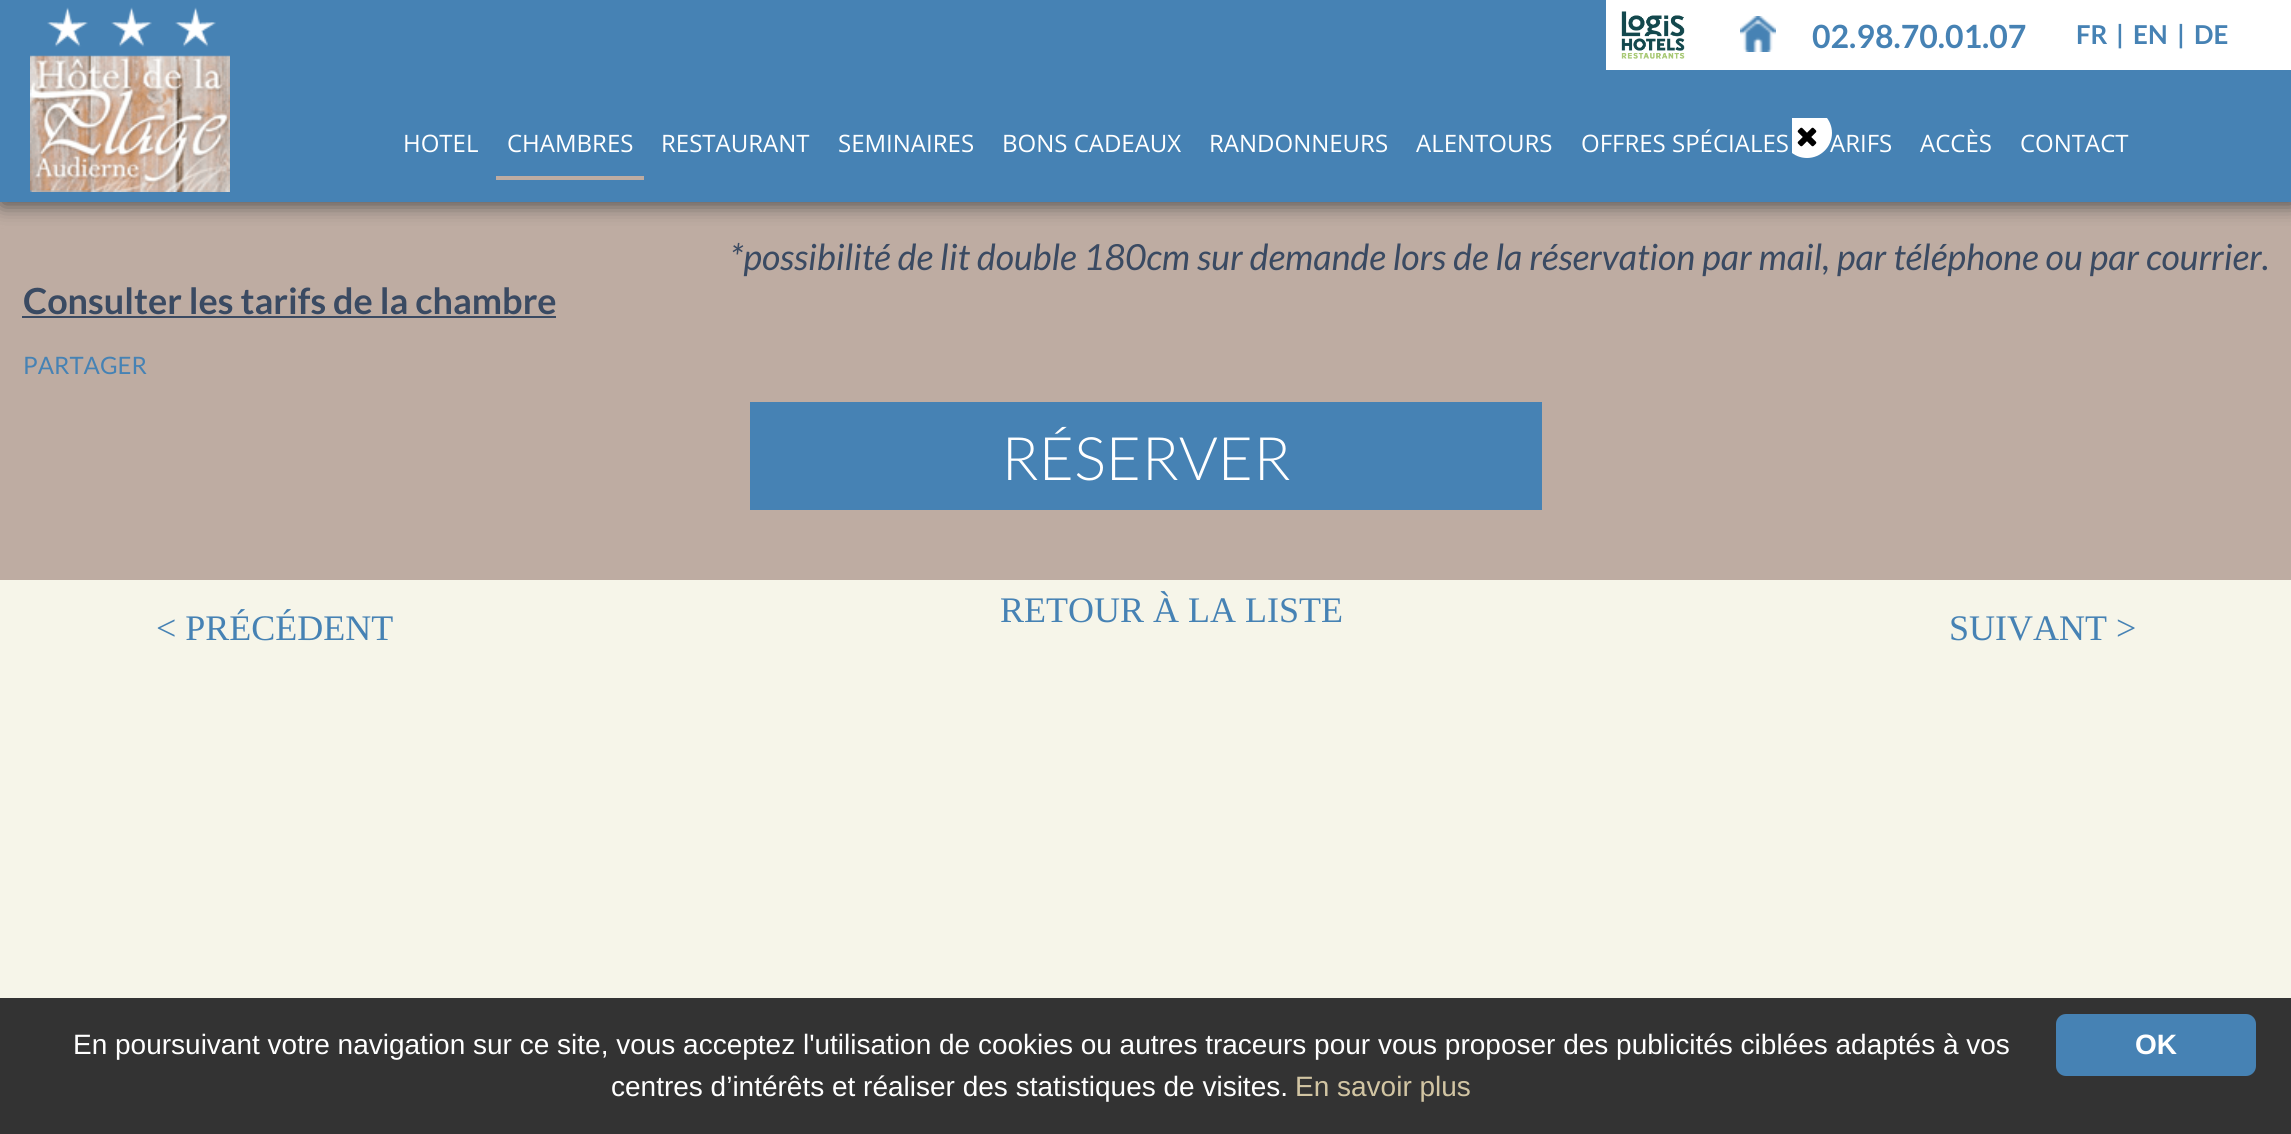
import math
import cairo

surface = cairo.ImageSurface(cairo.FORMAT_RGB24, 2291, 1134)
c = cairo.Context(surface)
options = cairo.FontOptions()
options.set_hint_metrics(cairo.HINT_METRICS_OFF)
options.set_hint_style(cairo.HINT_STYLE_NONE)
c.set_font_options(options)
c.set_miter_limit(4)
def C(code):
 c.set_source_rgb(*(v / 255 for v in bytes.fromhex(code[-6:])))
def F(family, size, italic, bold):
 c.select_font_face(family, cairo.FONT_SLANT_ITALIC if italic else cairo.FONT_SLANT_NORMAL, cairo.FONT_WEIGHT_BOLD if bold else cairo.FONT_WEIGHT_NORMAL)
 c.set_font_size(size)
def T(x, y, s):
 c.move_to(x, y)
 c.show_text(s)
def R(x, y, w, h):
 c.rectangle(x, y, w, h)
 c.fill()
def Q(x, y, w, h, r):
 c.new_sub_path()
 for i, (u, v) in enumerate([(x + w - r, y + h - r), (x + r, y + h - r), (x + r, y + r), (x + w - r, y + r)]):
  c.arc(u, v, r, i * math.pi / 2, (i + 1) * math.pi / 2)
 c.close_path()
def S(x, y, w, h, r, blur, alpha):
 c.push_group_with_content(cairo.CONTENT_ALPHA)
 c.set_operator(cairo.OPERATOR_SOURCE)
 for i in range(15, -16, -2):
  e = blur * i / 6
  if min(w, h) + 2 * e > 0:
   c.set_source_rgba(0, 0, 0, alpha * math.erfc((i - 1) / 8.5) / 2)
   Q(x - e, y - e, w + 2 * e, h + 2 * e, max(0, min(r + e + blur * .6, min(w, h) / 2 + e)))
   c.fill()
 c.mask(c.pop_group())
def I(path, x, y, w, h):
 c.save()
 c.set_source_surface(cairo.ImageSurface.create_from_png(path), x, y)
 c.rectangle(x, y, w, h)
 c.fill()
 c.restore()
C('f6f5e9')
c.paint()
C('beaca2')
R(0,202,2291,378)
C('444444')
S(2,2,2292,202,0,10,1)
C('4682b4')
R(0,0,2291,202)
I('1.png',30,7,200,185)
C('ffffff')
R(1606,0,685,70)
I('2.png',1621,11,64,48)
I('3.png',1740,16,36,36)
F('Lato',32,0,1)
C('4682b4')
T(1812,48,'02.98.70.01.07')
F('Lato',26,0,1)
T(2076,44,'FR')
T(2116,44,'|')
T(2133,44,'EN')
T(2177,44,'|')
T(2194,44,'DE')
F('Open Sans',24,0,0)
C('ffffff')
T(403,152,'HOTEL')
C('beaca2')
R(496,176,148,4)
C('ffffff')
T(507,152,'CHAMBRES')
T(661,152,'RESTAURANT')
T(838,152,'SEMINAIRES')
T(1002,152,'BONS CADEAUX')
T(1209,152,'RANDONNEURS')
T(1416,152,'ALENTOURS')
T(1581,152,'OFFRES SPÉCIALES')
T(1830,152,'ARIFS')
T(1920,152,'ACCÈS')
T(2020,152,'CONTACT')
c.save()
c.rectangle(1792,118,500,900)
c.clip()
c.arc(1807,133,25,0,2 * math.pi)
c.fill()
c.restore()
I('4.png',1797,127,20,20)
F('Lato',36,1,0)
C('3a4a62')
T(730,270,'*possibilité de lit double 180cm sur demande lors de la réservation par mail, par téléphone ou par courrier.')
F('Lato',36,0,1)
T(23,314,'Consulter les tarifs de la chambre')
R(22,316,534,2)
F('Lato',24,0,0)
C('4682b4')
T(23,374,'PARTAGER')
R(750,402,792,108)
F('Lato Light',60,0,0)
C('ffffff')
T(1001,480,'RÉSERVER')
F('Liberation Serif',36,0,0)
C('4682b4')
T(156,640,'< PRÉCÉDENT')
T(1000,622,'RETOUR À LA LISTE')
T(1949,640,'SUIVANT >')
C('333333')
R(0,998,2291,136)
F('Liberation Sans',28,0,0)
C('ffffff')
T(73,1054,'En poursuivant votre navigation sur ce site, vous acceptez l\'utilisation de cookies ou autres traceurs pour vous proposer des publicités ciblées adaptés à vos')
T(611,1096,'centres d’intérêts et réaliser des statistiques de visites.')
C('d2c5a3')
T(1295,1096,'En savoir plus')
C('4682b4')
Q(2056,1014,200,62,10)
c.fill()
F('Liberation Sans',28,0,1)
C('ffffff')
T(2135,1054,'OK')
surface.write_to_png('o.png')
